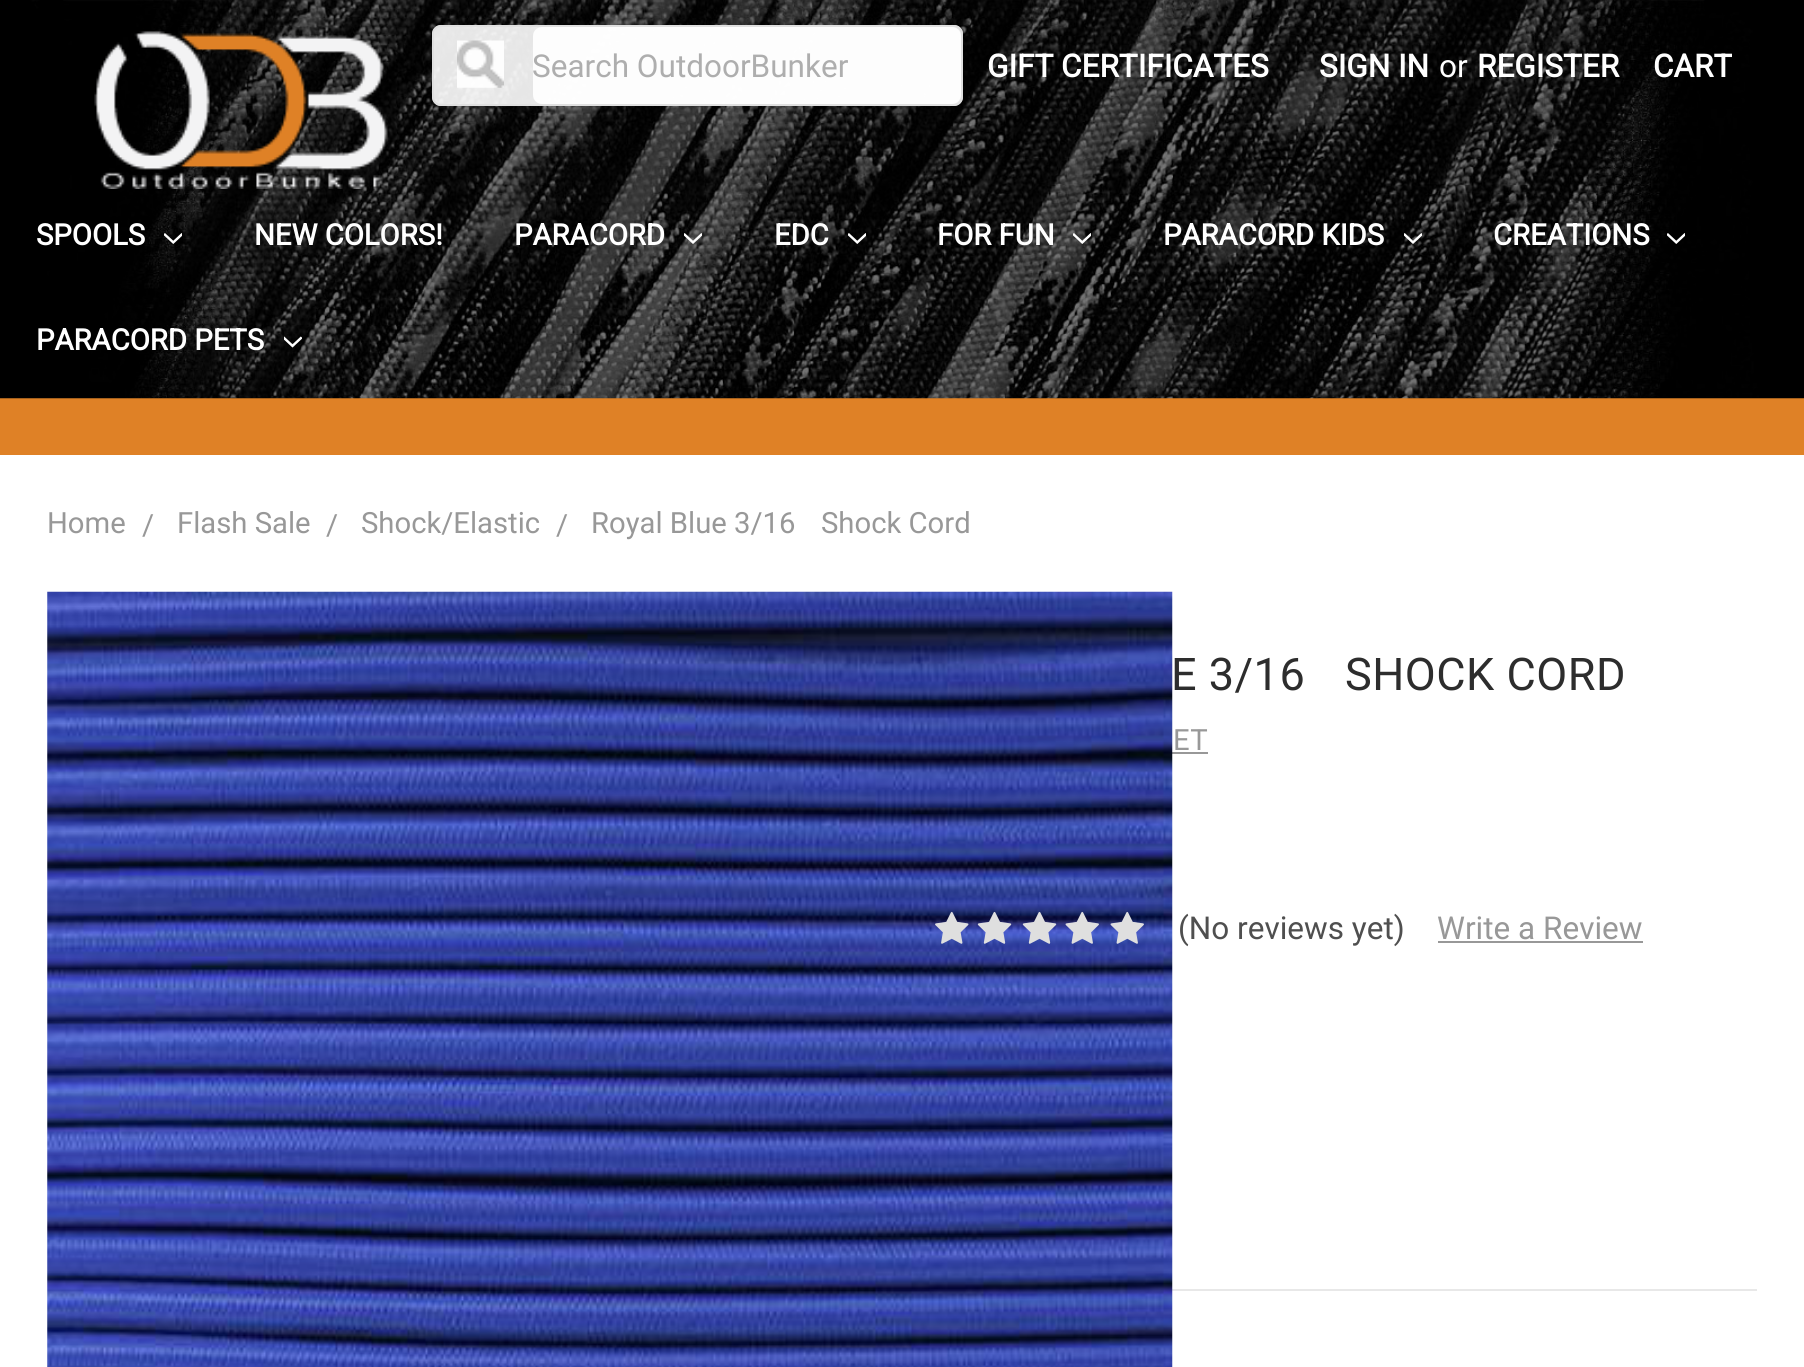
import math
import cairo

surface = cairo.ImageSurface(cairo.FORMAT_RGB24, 1804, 1367)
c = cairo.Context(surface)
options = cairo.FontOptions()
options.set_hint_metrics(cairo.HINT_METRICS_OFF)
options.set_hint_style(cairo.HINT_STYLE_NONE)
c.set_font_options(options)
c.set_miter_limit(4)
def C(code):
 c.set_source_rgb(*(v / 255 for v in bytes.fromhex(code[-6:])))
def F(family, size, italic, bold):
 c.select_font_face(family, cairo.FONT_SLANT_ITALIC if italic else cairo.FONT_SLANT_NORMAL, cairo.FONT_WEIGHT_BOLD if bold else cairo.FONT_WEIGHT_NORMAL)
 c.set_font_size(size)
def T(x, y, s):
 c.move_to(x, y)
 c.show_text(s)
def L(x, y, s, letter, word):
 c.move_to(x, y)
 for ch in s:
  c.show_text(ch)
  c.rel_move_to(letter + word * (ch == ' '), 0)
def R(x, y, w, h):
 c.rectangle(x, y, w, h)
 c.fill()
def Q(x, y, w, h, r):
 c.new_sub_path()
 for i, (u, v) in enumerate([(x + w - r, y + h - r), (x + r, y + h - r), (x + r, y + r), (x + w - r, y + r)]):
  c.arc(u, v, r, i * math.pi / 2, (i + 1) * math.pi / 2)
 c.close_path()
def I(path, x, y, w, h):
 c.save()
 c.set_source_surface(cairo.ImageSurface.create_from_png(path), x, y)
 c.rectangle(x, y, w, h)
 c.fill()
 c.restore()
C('ffffff')
c.paint()
C('df8126')
R(0,398,1804,57)
I('1.png',0,0,1804,399)
I('2.png',94,31,294,158)
c.set_source_rgba(1,1,1,0.9)
Q(432,25,531,81,9)
c.fill()
Q(433,26,529,79,8)
c.set_source_rgba(0.875,0.875,0.875,0.9)
c.stroke()
I('3.png',457,40,47,48)
c.set_source_rgba(1,1,1,0.9)
Q(533,27,428,77,9)
c.fill()
F('Roboto',31.5,0,0)
C('aeaeae')
T(532,77,'Search OutdoorBunker')
F('Roboto',31.5,0,1)
C('ffffff')
T(987,77,'GIFT CERTIFICATES')
T(1319,77,'SIGN IN')
F('Roboto',31.5,0,0)
T(1439,77,'or')
F('Roboto',31.5,0,1)
T(1477,77,'REGISTER')
T(1653,77,'CART')
F('Roboto',29.25,0,1)
T(36,245,'SPOOLS')
I('4.png',164,233,18,11)
T(254,245,'NEW COLORS!')
T(514,245,'PARACORD')
I('5.png',684,233,18,11)
T(774,245,'EDC')
I('6.png',848,233,18,11)
T(937,245,'FOR FUN')
I('7.png',1073,233,18,11)
T(1163,245,'PARACORD KIDS')
I('8.png',1404,233,18,11)
T(1493,245,'CREATIONS')
I('9.png',1667,233,18,11)
T(36,350,'PARACORD PETS')
I('10.png',284,336,18,12)
F('Roboto',29.25,0,0)
C('989898')
T(47,533,'Home')
T(142,535,'/')
T(177,533,'Flash Sale')
T(326,535,'/')
T(361,533,'Shock/Elastic')
T(556,535,'/')
T(591,533,'Royal Blue 3/16')
T(821,533,'Shock Cord')
C('e8e8e8')
R(1172,1289,585,2)
C('989898')
R(1172,752,36,2)
I('11.png',47,591,1126,776)
F('Roboto',45,0,0)
C('2d2d2d')
L(1171,690,'E 3/16',.5,0)
L(1345,690,'SHOCK CORD',.5,0)
F('Roboto',29.25,0,0)
C('989898')
L(1173,750,'ET',.5,0)
I('12.png',935,911,34,33)
I('13.png',977,911,35,33)
I('14.png',1022,911,35,33)
I('15.png',1065,911,34,33)
I('16.png',1110,911,34,33)
F('Roboto',31.5,0,0)
C('4f4f4f')
T(1178,939,'(No reviews yet)')
C('989898')
T(1437,939,'Write a Review')
R(1438,941,205,2)
surface.write_to_png('o.png')
